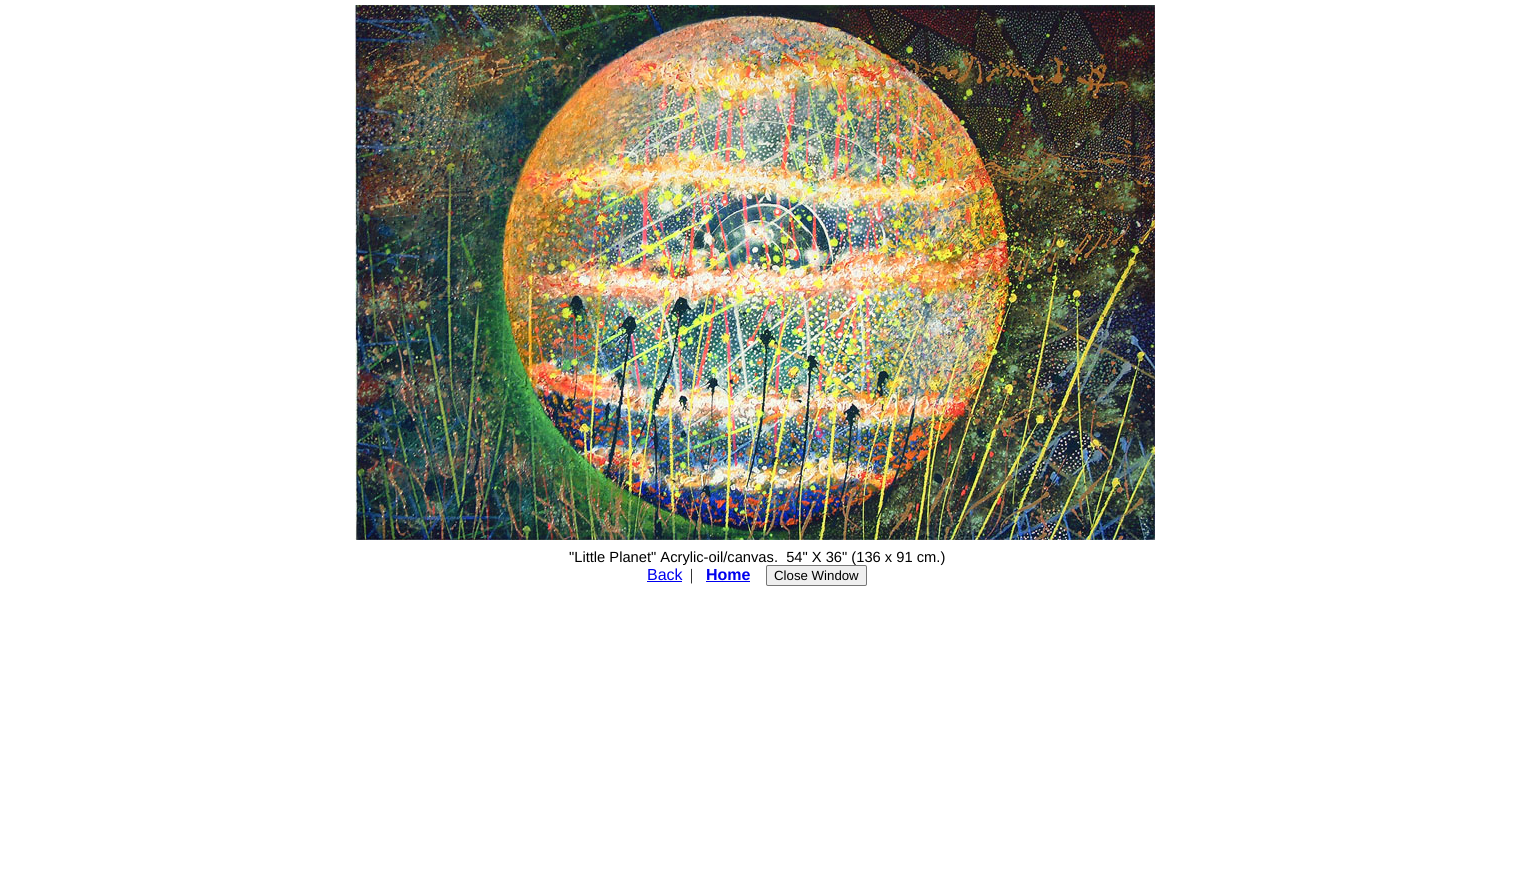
import math
import cairo

surface = cairo.ImageSurface(cairo.FORMAT_RGB24, 1514, 872)
c = cairo.Context(surface)
options = cairo.FontOptions()
options.set_hint_metrics(cairo.HINT_METRICS_OFF)
options.set_hint_style(cairo.HINT_STYLE_NONE)
c.set_font_options(options)
c.set_miter_limit(4)
def C(code):
 c.set_source_rgb(*(v / 255 for v in bytes.fromhex(code[-6:])))
def F(family, size, italic, bold):
 c.select_font_face(family, cairo.FONT_SLANT_ITALIC if italic else cairo.FONT_SLANT_NORMAL, cairo.FONT_WEIGHT_BOLD if bold else cairo.FONT_WEIGHT_NORMAL)
 c.set_font_size(size)
def T(x, y, s):
 c.move_to(x, y)
 c.show_text(s)
def R(x, y, w, h):
 c.rectangle(x, y, w, h)
 c.fill()
def Q(x, y, w, h, r):
 c.new_sub_path()
 for i, (u, v) in enumerate([(x + w - r, y + h - r), (x + r, y + h - r), (x + r, y + r), (x + w - r, y + r)]):
  c.arc(u, v, r, i * math.pi / 2, (i + 1) * math.pi / 2)
 c.close_path()
def I(path, x, y, w, h):
 c.save()
 c.set_source_surface(cairo.ImageSurface.create_from_png(path), x, y)
 c.rectangle(x, y, w, h)
 c.fill()
 c.restore()
C('ffffff')
c.paint()
I('1.png',355,5,800,535)
F('Liberation Sans',14.7,0,0)
C('000000')
T(569,562,'"Little Planet" Acrylic-oil/canvas.  54" X 36" (136 x 91 cm.)')
F('Liberation Sans',16,0,0)
C('0000ee')
T(647,580,'Back')
R(647,581,35,1)
F('Liberation Serif',16,0,0)
C('000000')
T(690,580,'|')
F('Liberation Sans',16,0,1)
C('0000ee')
T(706,580,'Home')
R(706,581,44,1)
C('efefef')
Q(766.5,565.5,100,20,1.5)
c.fill_preserve()
C('767676')
c.set_line_width(1)
c.stroke()
F('Liberation Sans',13.25,0,0)
C('000000')
T(774,580,'Close Window')
surface.write_to_png('o.png')
